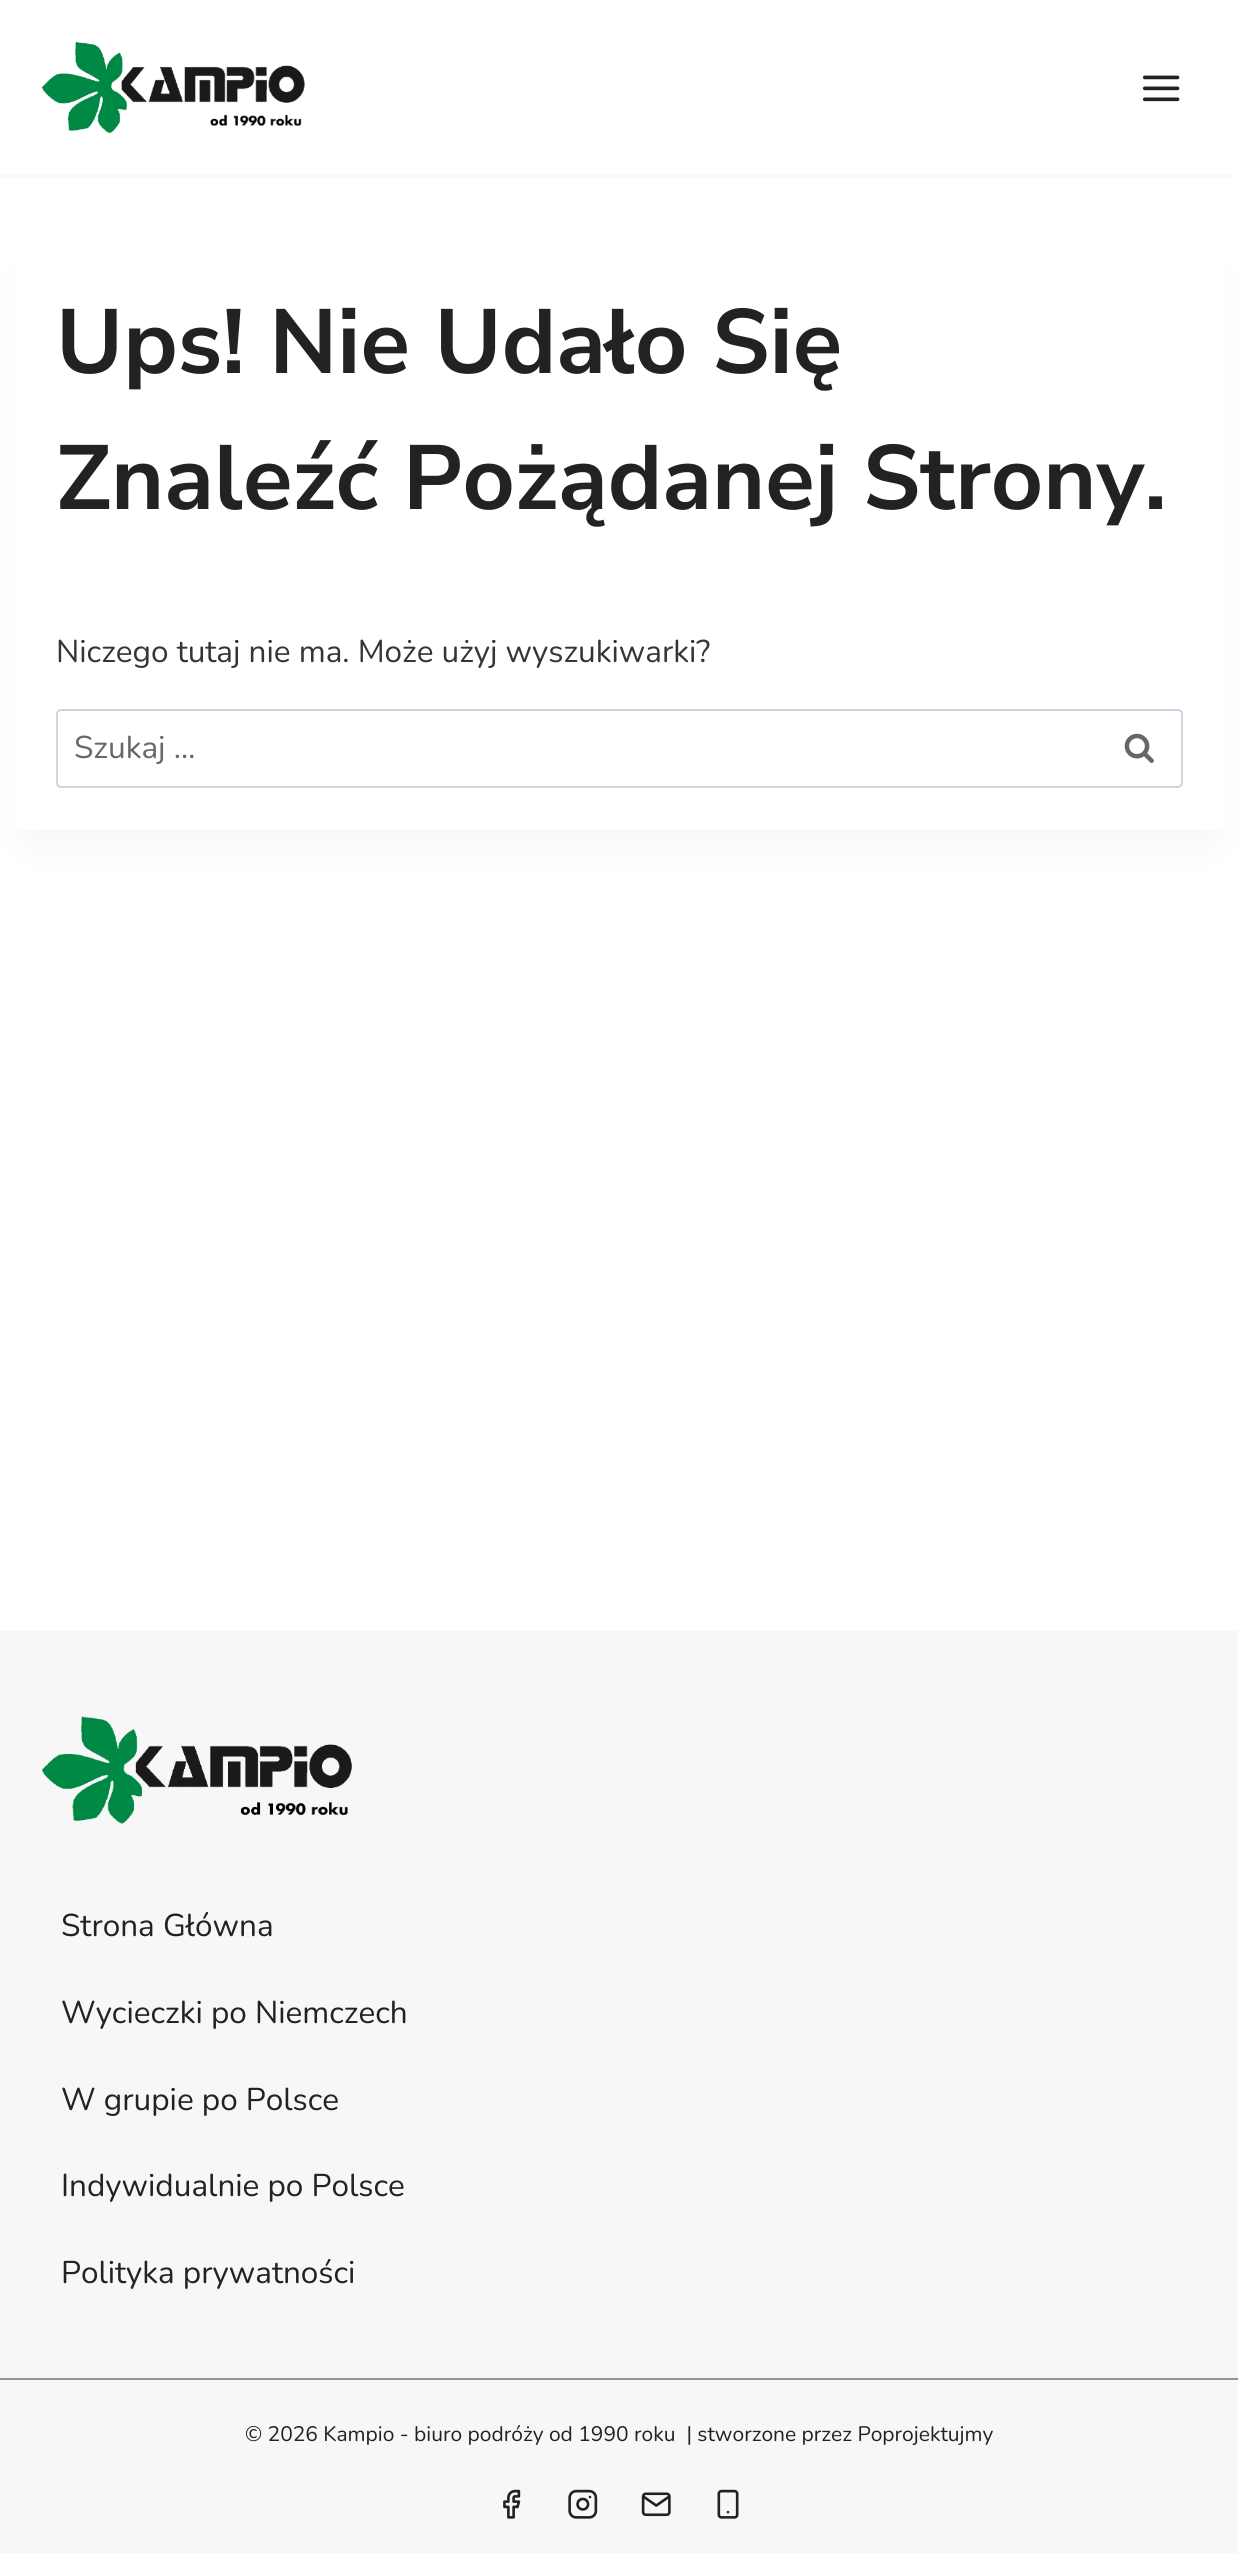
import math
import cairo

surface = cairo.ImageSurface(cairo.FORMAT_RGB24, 1238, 2553)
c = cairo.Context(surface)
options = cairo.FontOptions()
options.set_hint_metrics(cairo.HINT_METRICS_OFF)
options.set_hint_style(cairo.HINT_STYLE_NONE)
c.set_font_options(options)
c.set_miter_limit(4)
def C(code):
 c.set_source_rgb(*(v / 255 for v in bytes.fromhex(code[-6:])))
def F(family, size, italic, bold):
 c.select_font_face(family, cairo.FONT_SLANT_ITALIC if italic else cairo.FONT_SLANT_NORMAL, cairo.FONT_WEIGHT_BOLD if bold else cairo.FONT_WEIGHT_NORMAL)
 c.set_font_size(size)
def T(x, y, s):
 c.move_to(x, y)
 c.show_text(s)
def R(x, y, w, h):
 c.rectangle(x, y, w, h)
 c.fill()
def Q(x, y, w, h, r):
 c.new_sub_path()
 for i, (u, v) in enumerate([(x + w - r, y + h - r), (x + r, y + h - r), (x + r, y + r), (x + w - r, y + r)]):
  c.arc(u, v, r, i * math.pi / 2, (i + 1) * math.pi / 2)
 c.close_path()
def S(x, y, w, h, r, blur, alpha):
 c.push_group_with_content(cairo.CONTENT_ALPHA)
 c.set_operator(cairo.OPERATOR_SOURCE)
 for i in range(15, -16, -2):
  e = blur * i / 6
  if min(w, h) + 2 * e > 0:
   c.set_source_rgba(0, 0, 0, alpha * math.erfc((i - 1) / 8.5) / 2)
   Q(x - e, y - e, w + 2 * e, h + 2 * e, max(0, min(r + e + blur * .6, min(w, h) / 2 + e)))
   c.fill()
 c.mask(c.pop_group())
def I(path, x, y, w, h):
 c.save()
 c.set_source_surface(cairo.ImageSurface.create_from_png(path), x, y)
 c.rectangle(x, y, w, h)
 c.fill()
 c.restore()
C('ffffff')
c.paint()
C('f9f9f9')
R(0,175,1238,2)
I('1.png',42,42,263,91)
I('2.png',1142,75,38,27)
C('000000')
S(32,277,1176,561,0,22,.05)
C('ffffff')
Q(14,233,1211,597,7)
c.fill()
F('Nunito Sans',91,0,1)
C('222222')
T(56,373,'Ups! Nie Udało Się')
T(56,509,'Znaleźć Pożądanej Strony.')
F('Nunito',31.5,0,0)
C('353535')
T(56,662,'Niczego tutaj nie ma. Może użyj wyszukiwarki?')
Q(57,710,1125,77,4)
C('cbd5e0')
c.stroke()
C('676767')
T(74,758,'Szukaj …')
I('3.png',1124,733,30,30)
C('f7f7f7')
R(0,1631,1238,747)
I('4.png',42,1716,310,108)
C('222222')
T(61,1936,'Strona Główna')
T(61,2023,'Wycieczki po Niemczech')
T(61,2110,'W grupie po Polsce')
T(61,2196,'Indywidualnie po Polsce')
T(61,2283,'Polityka prywatności')
C('f7f7f7')
R(0,2380,1238,173)
C('949494')
R(0,2378,1238,2)
F('Nunito',21,0,0)
C('222222')
T(245,2441,'© 2026 Kampio - biuro podróży od 1990 roku  | stworzone przez Poprojektujmy')
I('5.png',503,2489,18,30)
I('6.png',568,2489,30,30)
I('7.png',641,2492,30,25)
I('8.png',717,2489,22,30)
surface.write_to_png('o.png')
